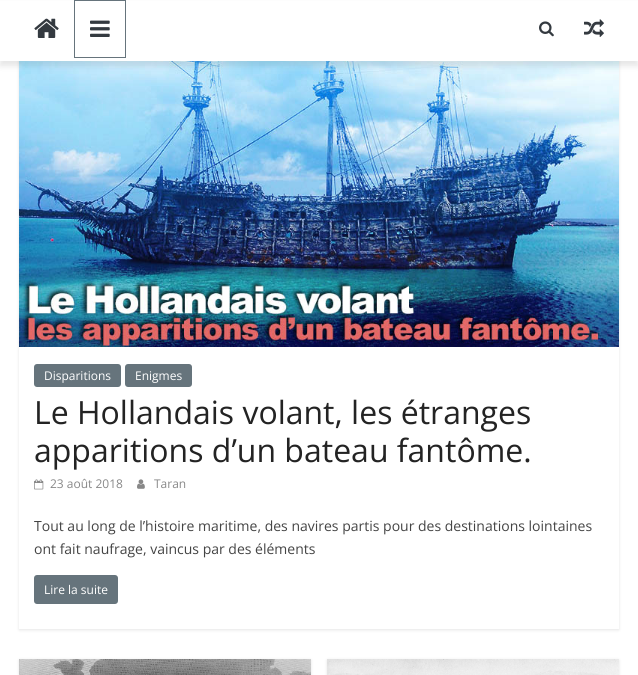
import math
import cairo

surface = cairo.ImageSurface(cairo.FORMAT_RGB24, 638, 675)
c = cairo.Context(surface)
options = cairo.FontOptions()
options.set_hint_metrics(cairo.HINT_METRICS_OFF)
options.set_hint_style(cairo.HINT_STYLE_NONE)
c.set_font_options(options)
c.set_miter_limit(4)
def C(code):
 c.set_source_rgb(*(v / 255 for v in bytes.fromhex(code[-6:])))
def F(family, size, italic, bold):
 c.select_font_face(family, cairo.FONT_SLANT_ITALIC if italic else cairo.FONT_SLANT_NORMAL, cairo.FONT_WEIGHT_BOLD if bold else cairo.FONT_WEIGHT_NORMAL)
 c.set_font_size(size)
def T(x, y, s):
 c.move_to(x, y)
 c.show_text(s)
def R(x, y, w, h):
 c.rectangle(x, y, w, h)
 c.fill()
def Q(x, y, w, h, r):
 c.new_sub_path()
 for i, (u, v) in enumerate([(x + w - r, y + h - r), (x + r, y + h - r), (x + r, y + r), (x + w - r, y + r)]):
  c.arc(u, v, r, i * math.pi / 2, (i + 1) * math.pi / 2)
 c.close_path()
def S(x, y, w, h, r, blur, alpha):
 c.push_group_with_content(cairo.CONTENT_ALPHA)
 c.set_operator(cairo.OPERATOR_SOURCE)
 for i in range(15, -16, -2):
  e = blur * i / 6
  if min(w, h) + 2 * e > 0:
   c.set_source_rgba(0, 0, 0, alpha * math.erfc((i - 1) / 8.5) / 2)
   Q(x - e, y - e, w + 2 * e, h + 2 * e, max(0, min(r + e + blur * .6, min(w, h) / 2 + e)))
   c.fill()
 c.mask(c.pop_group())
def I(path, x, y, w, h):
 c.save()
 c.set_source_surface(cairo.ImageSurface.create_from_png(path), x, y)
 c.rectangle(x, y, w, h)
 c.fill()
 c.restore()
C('ffffff')
c.paint()
c.save()
c.set_fill_rule(cairo.FILL_RULE_EVEN_ODD)
c.new_path()
c.move_to(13,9)
c.line_to(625,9)
c.line_to(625,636)
c.line_to(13,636)
c.close_path()
c.move_to(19,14)
c.line_to(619,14)
c.line_to(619,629)
c.line_to(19,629)
c.close_path()
c.clip()
C('000000')
S(19,15,600,615,0,1.5,.1)
c.restore()
I('5.png',19,61,600,286)
C('000000')
S(0,5,638,61,0,3,.1)
C('ffffff')
R(0,1,638,60)
I('1.png',34,18,25,20)
c.rectangle(74.5,.5,51,57)
C('66747c')
c.set_line_width(1)
c.stroke()
I('2.png',90,20,20,17)
I('3.png',539,21,15,16)
I('4.png',584,19,20,18)
Q(34,364,87,23,3)
c.fill()
F('Open Sans',12,0,0)
C('ffffff')
T(44,380,'Disparitions')
C('66747c')
Q(125,364,67,23,3)
c.fill()
C('ffffff')
T(135,380,'Enigmes')
F('Open Sans',32,0,0)
C('232323')
T(34,424,'Le Hollandais volant, les étranges')
T(34,462,'apparitions d’un bateau fantôme.')
I('6.png',34,479,10,11)
F('Open Sans',12,0,0)
C('888888')
T(50,488,'23 août 2018')
I('7.png',137,479,8,10)
T(154,488,'Taran')
F('Open Sans',14,0,0)
C('444444')
T(34,531,'Tout au long de l’histoire maritime, des navires partis pour des destinations lointaines')
T(34,554,'ont fait naufrage, vaincus par des éléments')
C('66747c')
Q(34,575,84,29,3)
c.fill()
F('Open Sans',12,0,0)
C('ffffff')
T(44,594,'Lire la suite')
C('000000')
S(19,660,292,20,0,1.5,.1)
I('8.png',19,659,292,16)
S(327,660,292,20,0,1.5,.1)
I('9.png',327,659,292,16)
surface.write_to_png('o.png')
